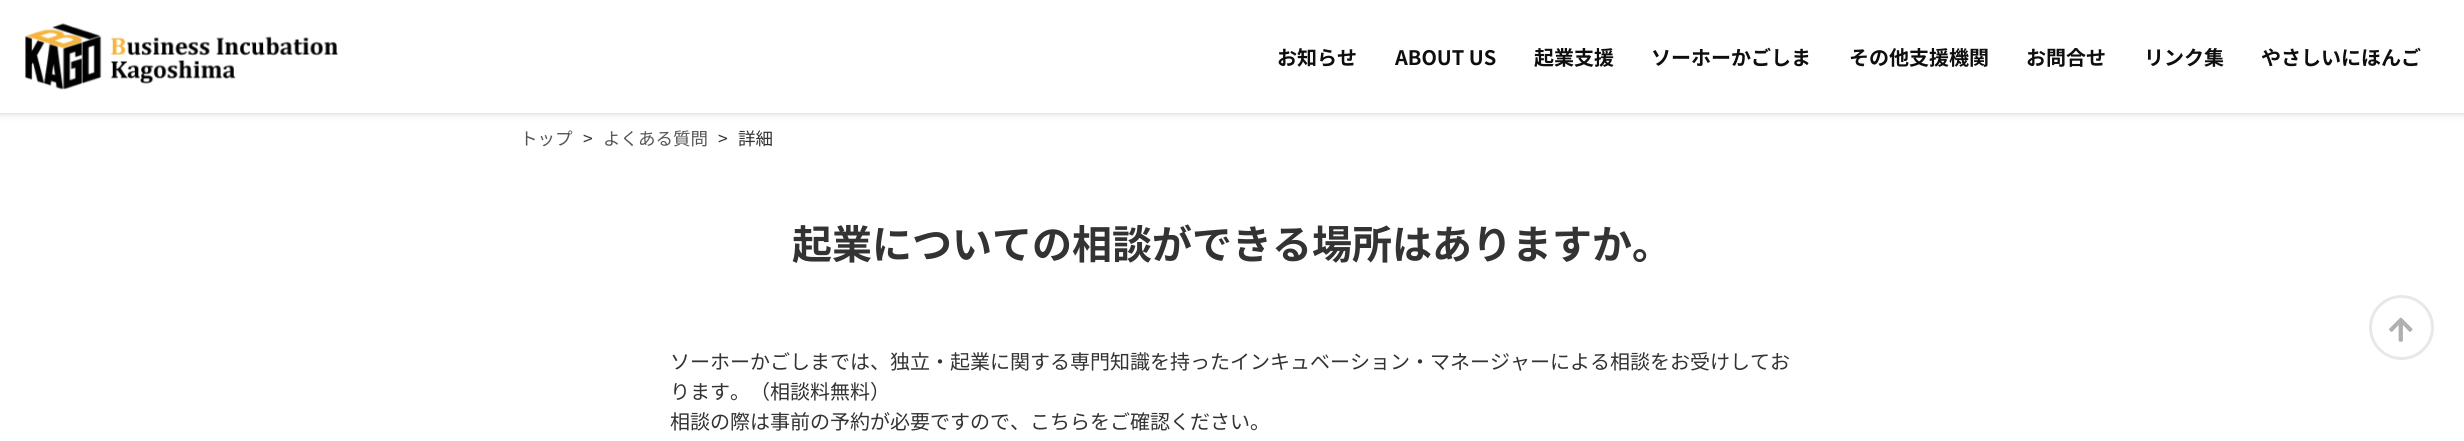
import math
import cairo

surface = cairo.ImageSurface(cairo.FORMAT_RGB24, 2464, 441)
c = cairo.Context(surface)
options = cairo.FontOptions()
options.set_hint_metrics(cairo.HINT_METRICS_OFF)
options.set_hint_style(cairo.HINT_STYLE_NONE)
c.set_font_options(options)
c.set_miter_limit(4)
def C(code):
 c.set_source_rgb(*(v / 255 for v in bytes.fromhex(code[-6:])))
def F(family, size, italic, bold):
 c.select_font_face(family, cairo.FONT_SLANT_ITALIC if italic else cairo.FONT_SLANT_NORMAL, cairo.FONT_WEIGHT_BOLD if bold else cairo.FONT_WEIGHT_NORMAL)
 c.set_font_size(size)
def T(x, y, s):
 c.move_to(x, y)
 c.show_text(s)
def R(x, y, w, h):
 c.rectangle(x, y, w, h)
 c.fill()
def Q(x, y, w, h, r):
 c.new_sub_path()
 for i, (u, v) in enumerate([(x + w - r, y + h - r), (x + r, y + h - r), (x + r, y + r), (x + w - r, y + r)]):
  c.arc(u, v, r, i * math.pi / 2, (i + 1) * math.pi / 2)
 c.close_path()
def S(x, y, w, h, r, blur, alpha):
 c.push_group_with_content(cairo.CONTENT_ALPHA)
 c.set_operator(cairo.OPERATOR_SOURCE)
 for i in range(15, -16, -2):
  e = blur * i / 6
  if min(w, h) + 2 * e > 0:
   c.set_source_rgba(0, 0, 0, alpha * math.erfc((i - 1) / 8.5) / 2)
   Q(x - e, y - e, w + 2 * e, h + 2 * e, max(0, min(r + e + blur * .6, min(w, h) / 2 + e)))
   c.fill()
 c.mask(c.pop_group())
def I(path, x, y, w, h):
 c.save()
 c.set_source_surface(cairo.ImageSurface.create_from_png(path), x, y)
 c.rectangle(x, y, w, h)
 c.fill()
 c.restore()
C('ffffff')
c.paint()
c.save()
c.set_fill_rule(cairo.FILL_RULE_EVEN_ODD)
c.new_path()
c.move_to(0,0)
c.line_to(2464,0)
c.line_to(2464,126)
c.line_to(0,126)
c.close_path()
c.move_to(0,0)
c.line_to(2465,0)
c.line_to(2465,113)
c.line_to(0,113)
c.close_path()
c.clip()
C('000000')
S(0,0,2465,113,0,4,.2)
c.restore()
c.set_source_rgba(1,1,1,0.9)
R(0,112,2464,1)
I('1.png',25,23,313,67)
F('Noto Sans JP',20,0,1)
C('0e0e0e')
T(1277,65,'お知らせ')
T(1395,65,'ABOUT US')
T(1534,65,'起業支援')
T(1651,65,'ソーホーかごしま')
T(1849,65,'その他支援機関')
T(2026,65,'お問合せ')
T(2144,65,'リンク集')
T(2261,65,'やさしいにほんご')
F('Noto Sans JP',17.5,0,0)
C('555555')
T(520,145,'トップ')
C('333333')
T(583,145,'>')
C('555555')
T(603,145,'よくある質問')
C('333333')
T(718,145,'>')
T(738,145,'詳細')
F('Noto Sans JP',40,0,1)
T(792,259,'起業についての相談ができる場所はありますか。')
F('Noto Sans JP',20,0,0)
T(670,369,'ソーホーかごしまでは、独立・起業に関する専門知識を持ったインキュベーション・マネージャーによる相談をお受けしてお')
T(670,399,'ります。（相談料無料）')
T(670,429,'相談の際は事前の予約が必要ですので、こちらをご確認ください。')
c.new_path()
c.arc(2401.5,327.5,31,0,2 * math.pi)
C('e8e8e8')
c.set_line_width(3)
c.stroke()
I('2.png',2389,317,24,25)
surface.write_to_png('o.png')
